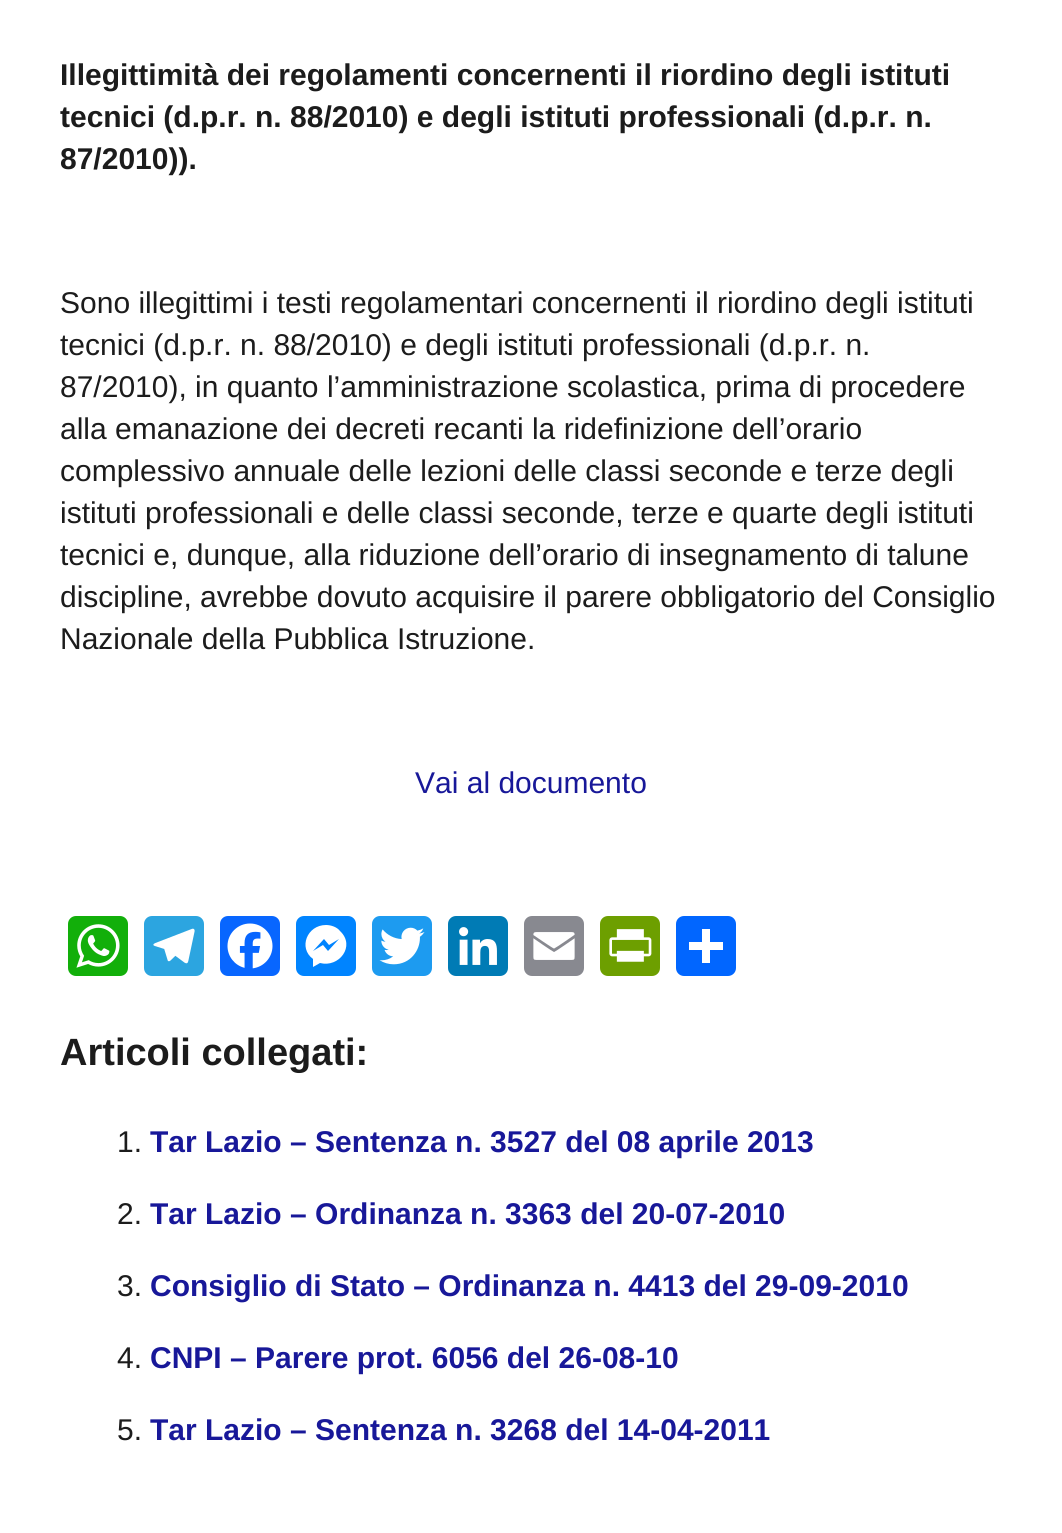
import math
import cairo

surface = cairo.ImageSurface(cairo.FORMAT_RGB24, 1062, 1533)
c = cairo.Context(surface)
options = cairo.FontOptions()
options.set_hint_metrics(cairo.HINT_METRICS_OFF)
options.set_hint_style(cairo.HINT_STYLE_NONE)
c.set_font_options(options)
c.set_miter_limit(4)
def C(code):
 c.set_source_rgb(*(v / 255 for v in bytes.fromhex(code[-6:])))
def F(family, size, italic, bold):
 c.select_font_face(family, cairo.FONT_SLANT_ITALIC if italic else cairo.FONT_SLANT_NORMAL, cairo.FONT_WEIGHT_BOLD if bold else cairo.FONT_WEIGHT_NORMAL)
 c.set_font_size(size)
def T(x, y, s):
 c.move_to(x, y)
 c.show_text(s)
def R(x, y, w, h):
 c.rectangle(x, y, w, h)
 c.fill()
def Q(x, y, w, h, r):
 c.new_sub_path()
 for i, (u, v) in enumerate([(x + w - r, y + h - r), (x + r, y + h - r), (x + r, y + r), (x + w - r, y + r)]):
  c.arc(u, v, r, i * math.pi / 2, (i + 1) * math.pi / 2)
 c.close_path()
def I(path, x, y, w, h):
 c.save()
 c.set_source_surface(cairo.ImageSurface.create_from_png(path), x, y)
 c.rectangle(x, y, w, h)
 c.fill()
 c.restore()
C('ffffff')
c.paint()
F('Liberation Sans',30,0,1)
C('1c1c1c')
T(60,85,'Illegittimità dei regolamenti concernenti il riordino degli istituti')
T(60,127,'tecnici (d.p.r. n. 88/2010) e degli istituti professionali (d.p.r. n.')
T(60,169,'87/2010)).')
F('Liberation Sans',30,0,0)
T(60,313,'Sono illegittimi i testi regolamentari concernenti il riordino degli istituti')
T(60,355,'tecnici (d.p.r. n. 88/2010) e degli istituti professionali (d.p.r. n.')
T(60,397,'87/2010), in quanto l’amministrazione scolastica, prima di procedere')
T(60,439,'alla emanazione dei decreti recanti la ridefinizione dell’orario')
T(60,481,'complessivo annuale delle lezioni delle classi seconde e terze degli')
T(60,523,'istituti professionali e delle classi seconde, terze e quarte degli istituti')
T(60,565,'tecnici e, dunque, alla riduzione dell’orario di insegnamento di talune')
T(60,607,'discipline, avrebbe dovuto acquisire il parere obbligatorio del Consiglio')
T(60,649,'Nazionale della Pubblica Istruzione.')
C('181899')
T(415,793,'Vai al documento')
C('12af0a')
Q(68,916,60,60,8)
c.fill()
I('1.png',76,924,44,44)
C('2ca5e0')
Q(144,916,60,60,8)
c.fill()
I('2.png',153,928,42,36)
C('0866ff')
Q(220,916,60,60,8)
c.fill()
I('3.png',227,923,46,46)
C('0084ff')
Q(296,916,60,60,8)
c.fill()
C('ffffff')
c.new_path()
c.move_to(326,925)
c.curve_to(307,925,298,948,313,959)
c.line_to(313,967)
c.line_to(320,963)
c.curve_to(339,968,356,946,340,931)
c.curve_to(337,927,331,925,326,925)
c.move_to(328,951)
c.line_to(323,945)
c.line_to(313,951)
c.line_to(324,939)
c.line_to(329,945)
c.line_to(339,939)
c.close_path()
c.fill()
C('1d9bf0')
Q(372,916,60,60,8)
c.fill()
I('4.png',379,927,46,38)
C('007bb5')
Q(448,916,60,60,8)
c.fill()
I('5.png',459,927,38,38)
C('888990')
Q(524,916,60,60,8)
c.fill()
I('6.png',533,932,42,28)
C('6d9f00')
Q(600,916,60,60,8)
c.fill()
I('7.png',609,929,43,33)
C('0166ff')
Q(676,916,60,60,8)
c.fill()
C('ffffff')
R(702,929,8,34)
R(689,942,34,8)
F('Liberation Sans',38,0,1)
C('1c1c1c')
T(60,1065,'Articoli collegati:')
F('Liberation Sans',30,0,0)
T(117,1152,'1.')
F('Liberation Sans',30,0,1)
C('181899')
T(150,1152,'Tar Lazio – Sentenza n. 3527 del 08 aprile 2013')
F('Liberation Sans',30,0,0)
C('1c1c1c')
T(117,1224,'2.')
F('Liberation Sans',30,0,1)
C('181899')
T(150,1224,'Tar Lazio – Ordinanza n. 3363 del 20-07-2010')
F('Liberation Sans',30,0,0)
C('1c1c1c')
T(117,1296,'3.')
F('Liberation Sans',30,0,1)
C('181899')
T(150,1296,'Consiglio di Stato – Ordinanza n. 4413 del 29-09-2010')
F('Liberation Sans',30,0,0)
C('1c1c1c')
T(117,1368,'4.')
F('Liberation Sans',30,0,1)
C('181899')
T(150,1368,'CNPI – Parere prot. 6056 del 26-08-10')
F('Liberation Sans',30,0,0)
C('1c1c1c')
T(117,1440,'5.')
F('Liberation Sans',30,0,1)
C('181899')
T(150,1440,'Tar Lazio – Sentenza n. 3268 del 14-04-2011')
surface.write_to_png('o.png')
